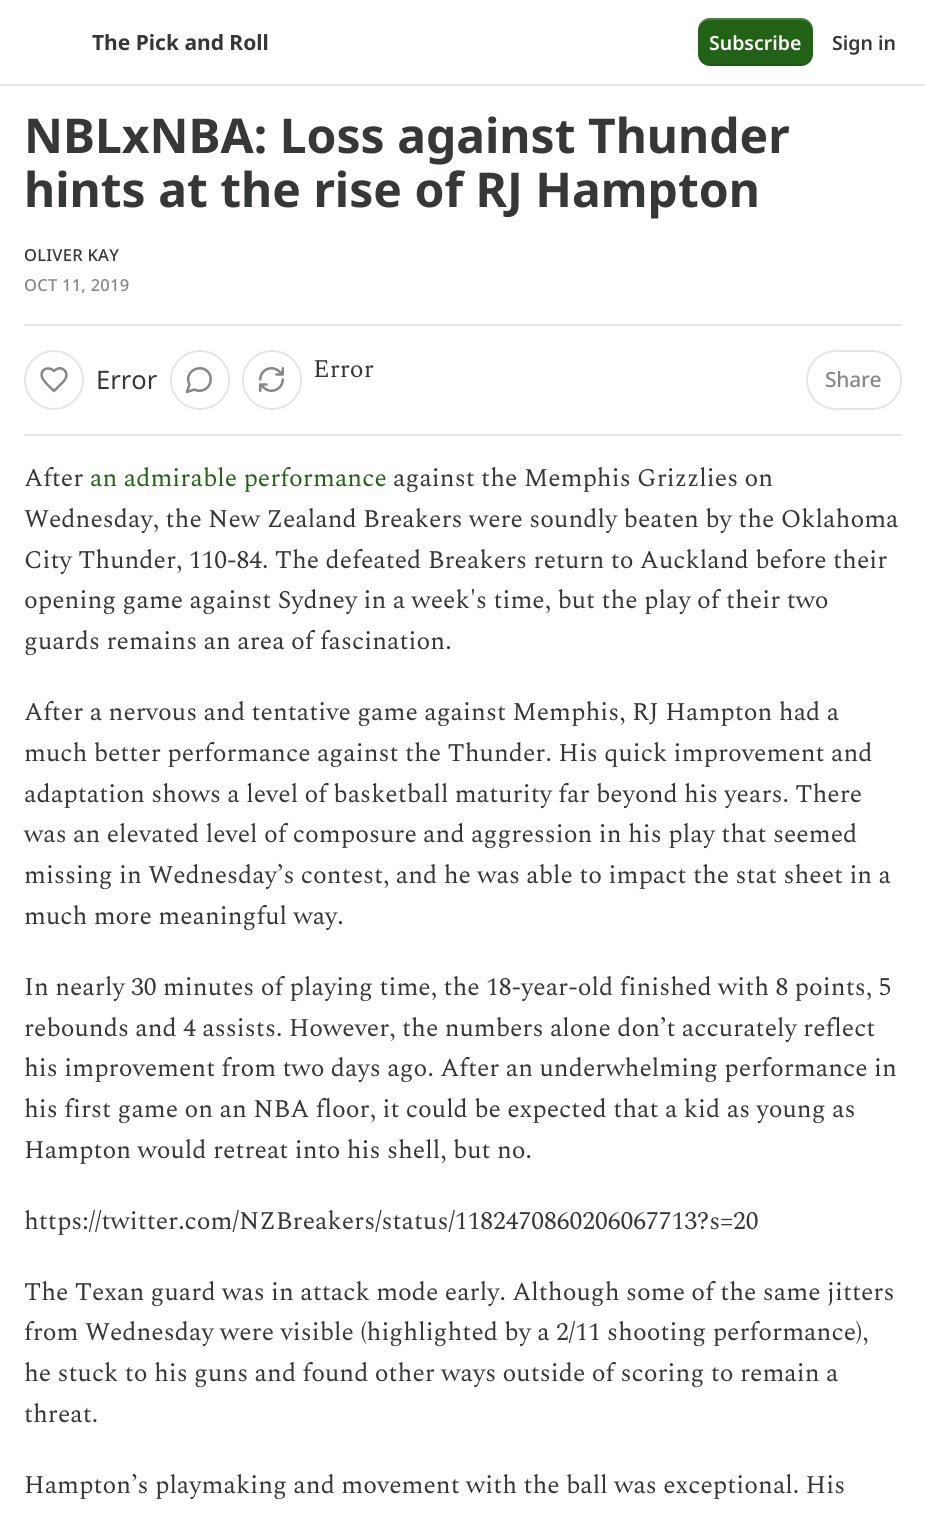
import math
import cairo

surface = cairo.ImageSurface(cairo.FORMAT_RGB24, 925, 1515)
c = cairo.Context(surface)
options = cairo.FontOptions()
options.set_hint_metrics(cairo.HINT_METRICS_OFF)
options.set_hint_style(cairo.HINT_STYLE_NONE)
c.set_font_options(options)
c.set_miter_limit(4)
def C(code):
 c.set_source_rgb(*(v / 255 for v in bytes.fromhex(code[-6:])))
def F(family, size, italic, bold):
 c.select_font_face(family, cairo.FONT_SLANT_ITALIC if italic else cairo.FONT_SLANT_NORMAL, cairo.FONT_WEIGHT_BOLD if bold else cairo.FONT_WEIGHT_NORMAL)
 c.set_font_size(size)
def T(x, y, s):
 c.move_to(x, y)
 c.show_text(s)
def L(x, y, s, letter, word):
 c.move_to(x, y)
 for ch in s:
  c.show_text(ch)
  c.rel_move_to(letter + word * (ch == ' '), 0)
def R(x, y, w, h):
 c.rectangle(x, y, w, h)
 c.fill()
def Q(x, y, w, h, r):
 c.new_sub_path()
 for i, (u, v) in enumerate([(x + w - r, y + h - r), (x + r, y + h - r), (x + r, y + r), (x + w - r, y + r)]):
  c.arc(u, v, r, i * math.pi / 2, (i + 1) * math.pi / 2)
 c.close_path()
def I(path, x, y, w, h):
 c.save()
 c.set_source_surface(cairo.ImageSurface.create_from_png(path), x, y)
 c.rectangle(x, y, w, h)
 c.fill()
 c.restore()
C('ffffff')
c.paint()
C('e6e6e6')
R(0,84,925,2)
c.save()
c.rectangle(92,18,177,48)
c.clip()
F('Noto Sans',21,0,1)
C('363737')
T(92,50,'The Pick and Roll')
c.restore()
C('226216')
Q(698,18,115,48,12)
c.fill()
c.set_source_rgba(0,0,0,0.1)
c.new_path()
c.move_to(698,52)
c.curve_to(698,69,712,66,725,66)
c.line_to(786,66)
c.curve_to(799,66,813,69,813,52)
c.curve_to(813,59,808,64,801,64)
c.line_to(710,64)
c.curve_to(703,64,698,59,698,52)
c.close_path()
c.fill()
c.set_source_rgba(1,1,1,0.2)
c.new_path()
c.move_to(710,20)
c.line_to(801,20)
c.curve_to(808,20,813,25,813,32)
c.curve_to(813,15,799,18,786,18)
c.line_to(725,18)
c.curve_to(712,18,698,15,698,32)
c.curve_to(698,25,703,20,710,20)
c.close_path()
c.fill()
F('Noto Sans SemiBold',19.5,0,0)
C('ffffff')
T(709,50,'Subscribe')
C('363737')
T(832,50,'Sign in')
F('Noto Sans',48,0,1)
T(24,153,'NBLxNBA: Loss against Thunder')
T(24,207,'hints at the rise of RJ Hampton')
F('Noto Sans Medium',16.5,0,0)
L(24,261,'OLIVER KAY',.25,0)
C('868787')
L(24,291,'OCT 11, 2019',.25,0)
C('e6e6e6')
R(24,324,878,2)
R(24,434,878,2)
c.new_path()
c.arc(54,380,29,0,2 * math.pi)
c.stroke()
c.new_path()
c.move_to(63,382)
c.curve_to(72,373,61,363.5,54,371)
c.curve_to(48.5,365.5,39.5,369.5,42,377)
c.curve_to(43,381,51,388,54,391)
c.close_path()
C('868787')
c.set_line_width(2.5)
c.set_line_cap(cairo.LINE_CAP_ROUND)
c.set_line_join(cairo.LINE_JOIN_ROUND)
c.stroke()
F('Noto Sans',25.5,0,0)
C('363737')
T(96,389,'Error')
c.new_path()
c.arc(200,380,29,0,2 * math.pi)
C('e6e6e6')
c.set_line_width(2)
c.set_line_cap(cairo.LINE_CAP_BUTT)
c.set_line_join(cairo.LINE_JOIN_MITER)
c.stroke()
c.new_path()
c.move_to(194.5,389.5)
c.curve_to(200,392.5,207,390,209.5,384.5)
c.curve_to(211,381.5,211,378,210,375)
c.curve_to(203.5,361,182.5,371,189.5,384.5)
c.line_to(187,392)
c.close_path()
C('868787')
c.set_line_width(2.5)
c.set_line_cap(cairo.LINE_CAP_ROUND)
c.set_line_join(cairo.LINE_JOIN_ROUND)
c.stroke()
c.arc(272,380,29,0,2 * math.pi)
C('e6e6e6')
c.set_line_width(2)
c.set_line_cap(cairo.LINE_CAP_BUTT)
c.set_line_join(cairo.LINE_JOIN_MITER)
c.stroke()
I('1.png',259,367,25,25)
F('Spectral',25.5,0,0)
C('363737')
T(313,377,'Error')
Q(807,351,94,58,29)
C('e6e6e6')
c.stroke()
F('Noto Sans Medium',21,0,0)
C('868787')
L(825,387,'Share',-.25,0)
F('Spectral',25.5,0,0)
C('363737')
T(24,486,'After')
C('226216')
T(90,486,'an admirable performance')
C('363737')
T(393,486,'against the Memphis Grizzlies on')
T(24,527,'Wednesday, the New Zealand Breakers were soundly beaten by the Oklahoma')
T(24,568,'City Thunder, 110-84. The defeated Breakers return to Auckland before their')
T(24,608,'opening game against Sydney in a week\'s time, but the play of their two')
T(24,649,'guards remains an area of fascination.')
T(24,720,'After a nervous and tentative game against Memphis, RJ Hampton had a')
T(24,761,'much better performance against the Thunder. His quick improvement and')
T(24,802,'adaptation shows a level of basketball maturity far beyond his years. There')
T(24,842,'was an elevated level of composure and aggression in his play that seemed')
T(24,883,'missing in Wednesday’s contest, and he was able to impact the stat sheet in a')
T(24,924,'much more meaningful way.')
T(24,995,'In nearly 30 minutes of playing time, the 18-year-old finished with 8 points, 5')
T(24,1036,'rebounds and 4 assists. However, the numbers alone don’t accurately reflect')
T(24,1076,'his improvement from two days ago. After an underwhelming performance in')
T(24,1117,'his first game on an NBA floor, it could be expected that a kid as young as')
T(24,1158,'Hampton would retreat into his shell, but no.')
T(24,1229,'https://twitter.com/NZBreakers/status/1182470860206067713?s=20')
T(24,1300,'The Texan guard was in attack mode early. Although some of the same jitters')
T(24,1340,'from Wednesday were visible (highlighted by a 2/11 shooting performance),')
T(24,1381,'he stuck to his guns and found other ways outside of scoring to remain a')
T(24,1422,'threat.')
T(24,1493,'Hampton’s playmaking and movement with the ball was exceptional. His')
surface.write_to_png('o.png')
